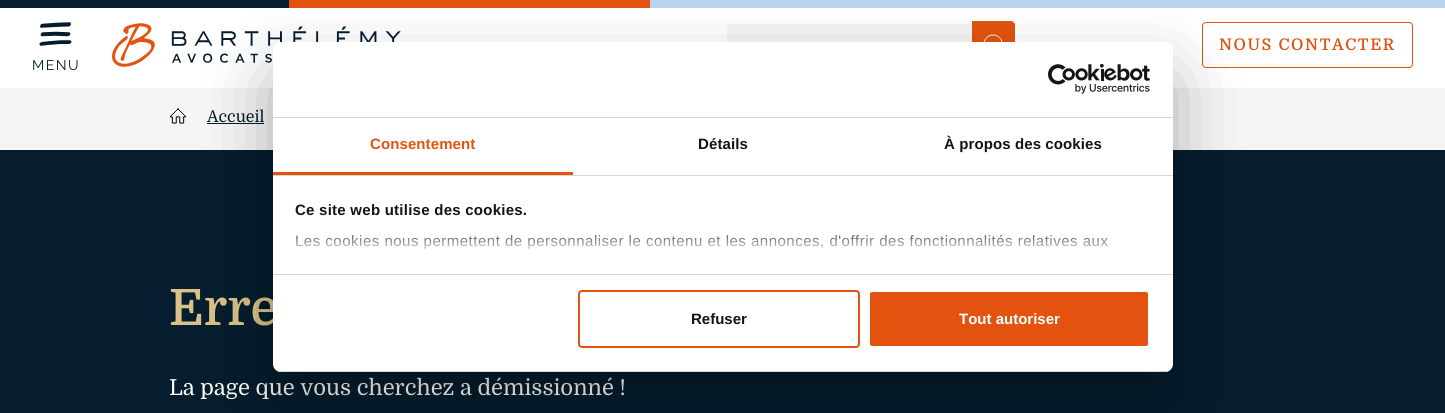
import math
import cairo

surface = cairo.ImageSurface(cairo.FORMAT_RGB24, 1445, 413)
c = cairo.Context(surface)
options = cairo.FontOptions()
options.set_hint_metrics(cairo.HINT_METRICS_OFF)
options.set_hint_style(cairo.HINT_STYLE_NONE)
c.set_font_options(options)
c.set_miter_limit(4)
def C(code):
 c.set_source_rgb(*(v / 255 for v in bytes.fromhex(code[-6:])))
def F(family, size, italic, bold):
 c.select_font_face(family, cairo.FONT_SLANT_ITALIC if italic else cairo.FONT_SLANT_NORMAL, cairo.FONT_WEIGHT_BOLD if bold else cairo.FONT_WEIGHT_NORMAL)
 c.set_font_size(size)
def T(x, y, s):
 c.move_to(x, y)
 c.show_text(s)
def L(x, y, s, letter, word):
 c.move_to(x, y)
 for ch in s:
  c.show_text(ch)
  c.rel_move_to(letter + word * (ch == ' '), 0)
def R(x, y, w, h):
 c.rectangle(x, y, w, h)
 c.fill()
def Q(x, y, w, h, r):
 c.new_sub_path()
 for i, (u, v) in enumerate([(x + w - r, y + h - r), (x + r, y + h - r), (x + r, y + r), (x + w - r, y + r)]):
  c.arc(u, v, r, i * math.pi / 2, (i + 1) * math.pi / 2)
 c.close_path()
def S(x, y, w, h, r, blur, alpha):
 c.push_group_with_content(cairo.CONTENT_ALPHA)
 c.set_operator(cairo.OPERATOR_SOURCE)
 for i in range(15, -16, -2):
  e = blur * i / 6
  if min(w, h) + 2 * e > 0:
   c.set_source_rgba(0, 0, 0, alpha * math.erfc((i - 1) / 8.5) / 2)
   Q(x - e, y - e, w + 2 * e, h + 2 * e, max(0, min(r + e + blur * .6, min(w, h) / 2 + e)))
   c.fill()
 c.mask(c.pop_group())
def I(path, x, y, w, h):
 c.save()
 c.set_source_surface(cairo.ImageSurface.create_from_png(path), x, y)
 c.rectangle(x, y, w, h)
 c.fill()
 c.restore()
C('ffffff')
c.paint()
C('051d2e')
R(0,0,289,8)
C('e3530f')
R(289,0,361,8)
C('b9d4ec')
R(650,0,795,8)
I('1.png',112,23,289,44)
C('f5f5f5')
Q(727,24,245,42,4)
c.fill()
C('e3530f')
c.new_path()
c.move_to(972,21)
c.line_to(1011,21)
c.curve_to(1013,21,1015,23,1015,25)
c.line_to(1015,65)
c.curve_to(1015,67,1013,69,1011,69)
c.line_to(972,69)
c.close_path()
c.fill()
I('2.png',983,34,20,8)
Q(1202.5,22.5,210,45,3.5)
c.set_line_width(1)
c.stroke()
F('Domine SemiBold',16,0,0)
L(1219,50,'NOUS CONTACTER',1.6,0)
I('3.png',39,22,33,24)
F('Raleway',14,0,0)
C('051d2e')
L(32,70,'MENU',1.5,0)
C('f5f5f5')
R(0,88,1445,62)
I('4.png',170,108,16,16)
F('Domine',16,0,0)
C('051d2e')
T(207,122,'Accueil')
R(207,123,57,1)
R(0,150,1445,263)
F('Domine SemiBold',50,0,0)
C('dac287')
T(169,325,'Erre')
F('Domine',22,0,0)
C('ffffff')
T(169,395,'La page que vous cherchez a démissionné !')
C('000000')
S(273,74,900,330,8,34,.3)
C('ffffff')
Q(273,42,900,330,8)
c.fill()
C('d6d6d6')
R(273,117,900,1)
I('5.png',1048,64,102,30)
R(273,175,900,1)
C('e3530f')
R(273,172,300,3)
F('Liberation Sans',15,0,1)
L(370,149,'Consentement',.1,0)
C('141414')
L(698,149,'Détails',.1,0)
L(944,149,'À propos des cookies',.1,0)
C('d6d6d6')
R(273,274,900,1)
C('141414')
L(295,215,'Ce site web utilise des cookies.',.25,0)
F('Liberation Sans',15,0,0)
L(295,246,'Les cookies nous permettent de personnaliser le contenu et les annonces, d\'offrir des fonctionnalités relatives aux',.5,0)
gradient = cairo.LinearGradient(713,274,713,225)
gradient.add_color_stop_rgba(0,1,1,1,1)
gradient.add_color_stop_rgba(.5,1,1,1,.8)
gradient.add_color_stop_rgba(1,1,1,1,0)
c.set_source(gradient)
R(296,234,812,16)
c.save()
Q(273,42,900,330,8)
c.clip()
C('d6d6d6')
R(273,371,900,1)
c.restore()
Q(579,291,280,56,3)
C('e3530f')
c.set_line_width(2)
c.stroke()
F('Liberation Sans',15,0,1)
C('141414')
T(691,324,'Refuser')
C('e3530f')
Q(869,291,280,56,3)
c.fill_preserve()
C('ffffff')
c.stroke()
T(959,324,'Tout autoriser')
surface.write_to_png('o.png')
